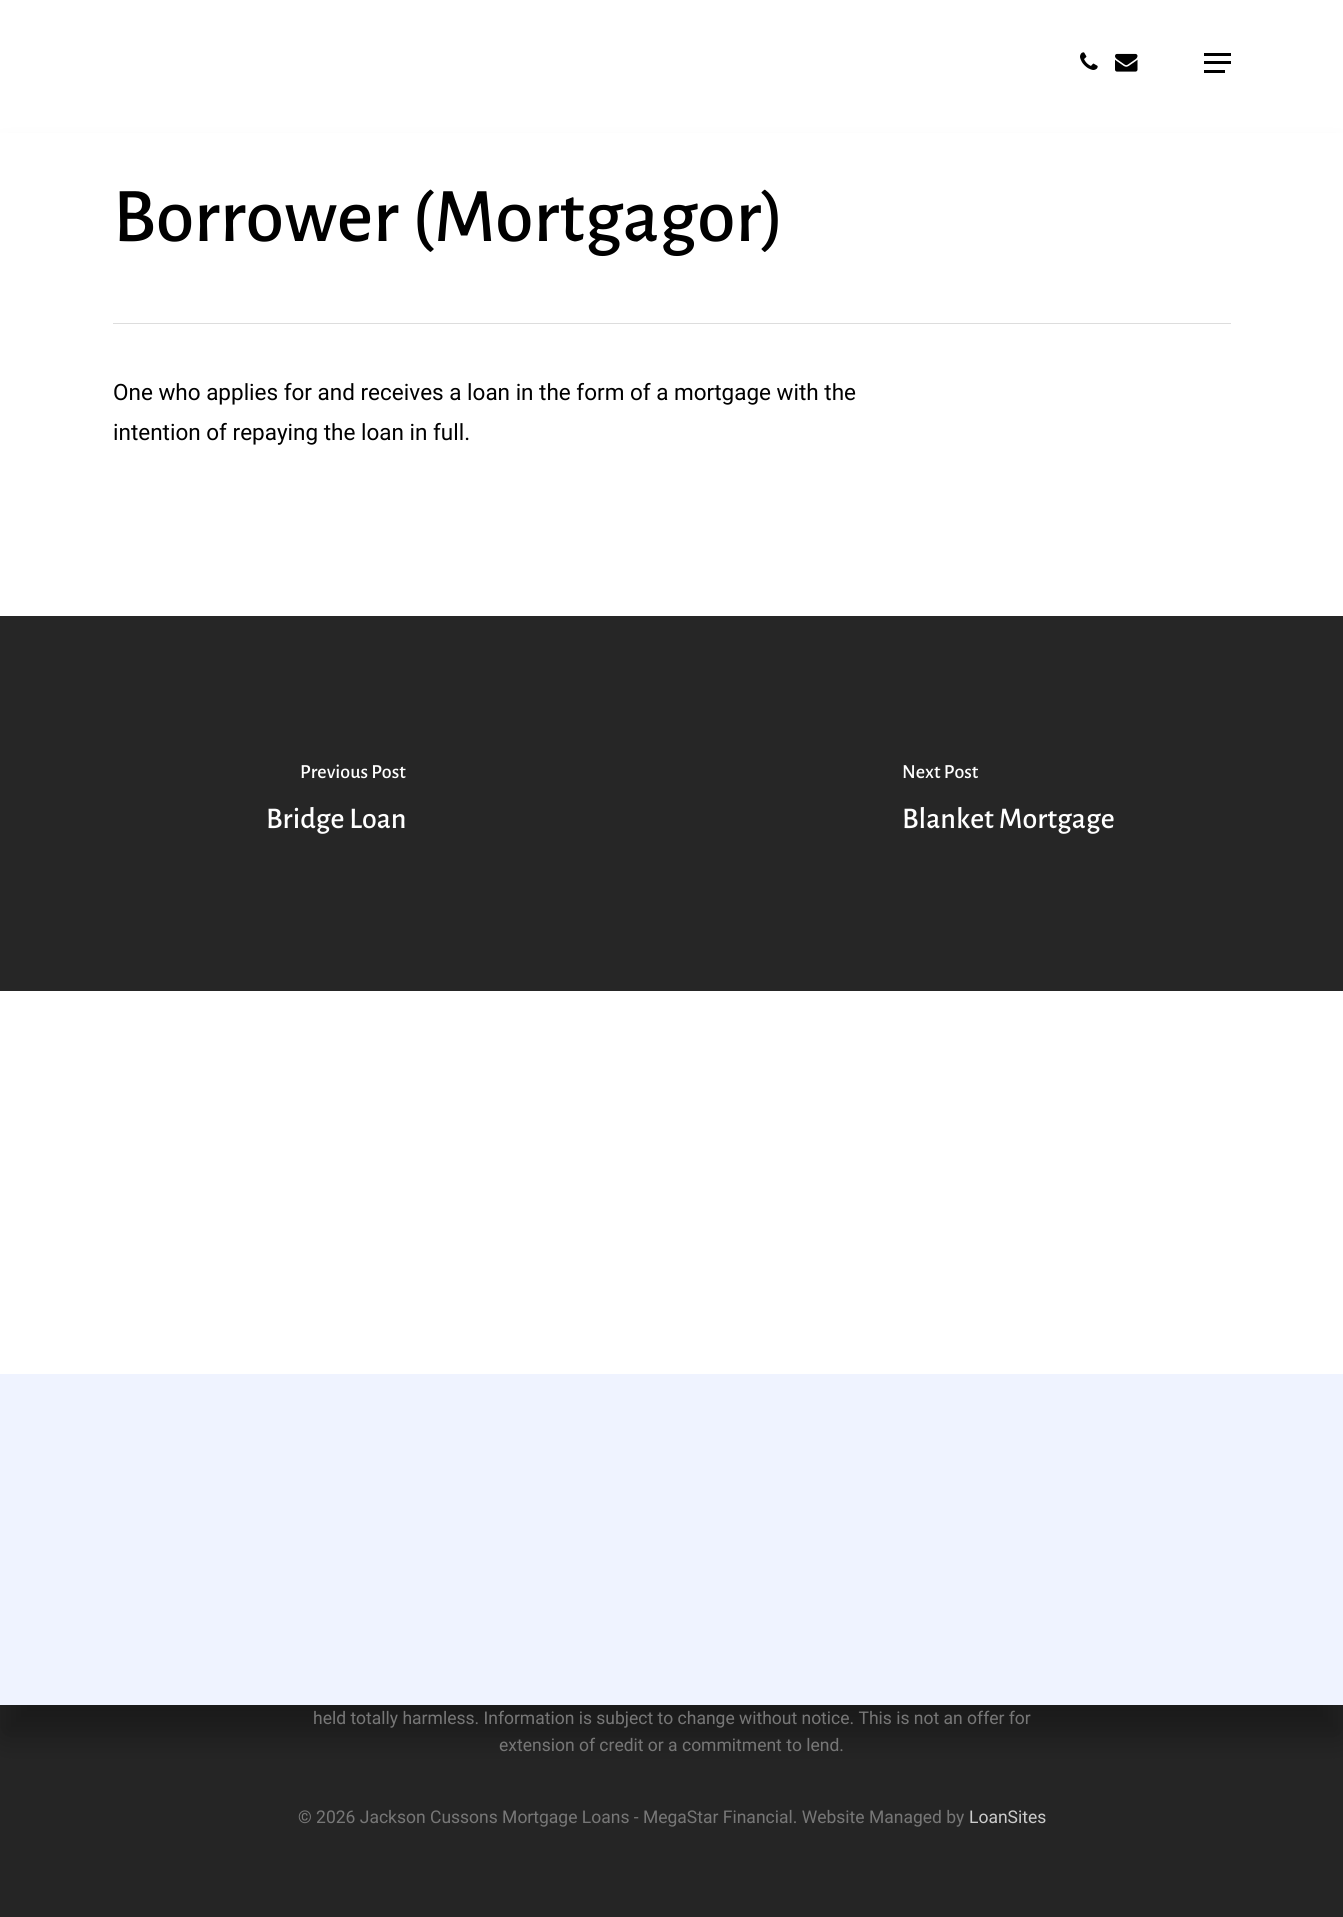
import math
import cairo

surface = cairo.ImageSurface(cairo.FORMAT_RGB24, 1343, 1917)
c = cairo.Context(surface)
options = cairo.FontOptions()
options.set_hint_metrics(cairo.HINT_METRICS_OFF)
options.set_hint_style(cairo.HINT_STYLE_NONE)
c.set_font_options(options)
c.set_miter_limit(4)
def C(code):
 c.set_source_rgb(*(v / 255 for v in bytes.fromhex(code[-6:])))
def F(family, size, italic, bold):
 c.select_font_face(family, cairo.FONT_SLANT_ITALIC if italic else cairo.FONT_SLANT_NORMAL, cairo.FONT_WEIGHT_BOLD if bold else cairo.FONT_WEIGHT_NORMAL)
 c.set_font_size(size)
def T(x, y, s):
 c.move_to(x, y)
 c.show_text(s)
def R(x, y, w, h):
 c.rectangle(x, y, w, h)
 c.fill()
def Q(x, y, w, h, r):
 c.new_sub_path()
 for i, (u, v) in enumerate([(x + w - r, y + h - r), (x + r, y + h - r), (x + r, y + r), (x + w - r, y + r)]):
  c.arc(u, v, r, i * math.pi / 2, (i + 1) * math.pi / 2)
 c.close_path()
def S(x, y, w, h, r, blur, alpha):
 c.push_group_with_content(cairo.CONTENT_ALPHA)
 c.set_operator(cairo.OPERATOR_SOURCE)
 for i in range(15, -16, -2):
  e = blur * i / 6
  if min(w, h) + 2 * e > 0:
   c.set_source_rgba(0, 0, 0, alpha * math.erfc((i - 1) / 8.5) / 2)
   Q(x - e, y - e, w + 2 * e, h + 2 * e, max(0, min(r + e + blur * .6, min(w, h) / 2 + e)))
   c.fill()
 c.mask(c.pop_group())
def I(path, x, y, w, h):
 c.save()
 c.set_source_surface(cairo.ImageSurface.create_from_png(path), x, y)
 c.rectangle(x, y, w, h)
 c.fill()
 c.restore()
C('ffffff')
c.paint()
I('1.png',1080,52,18,18)
I('2.png',1115,53,23,19)
C('000000')
R(1204,53,27,3)
R(1204,70,21,3)
R(1204,61,27,3)
C('252525')
R(0,1705,1343,212)
C('000000')
S(3,161,1338,1574,0,15.5,.3)
C('ffffff')
R(0,133,1343,1241)
C('dddddd')
R(113,323,1118,1)
F('Alegreya Sans Medium',77.5,0,0)
C('000000')
T(113,241,'Borrower (Mortgagor)')
F('Roboto',22.5,0,0)
T(113,400,'One who applies for and receives a loan in the form of a mortgage with the')
T(113,440,'intention of repaying the loan in full.')
C('262626')
R(0,616,1343,375)
F('Alegreya Sans Medium',20,0,0)
C('ffffff')
T(300,778,'Previous Post')
F('Alegreya Sans Medium',30,0,0)
T(266,828,'Bridge Loan')
F('Alegreya Sans Medium',20,0,0)
T(902,778,'Next Post')
F('Alegreya Sans Medium',30,0,0)
T(902,828,'Blanket Mortgage')
C('eff3ff')
R(0,1374,1343,331)
F('Roboto',17.5,0,0)
C('777777')
T(313,1724,'held totally harmless. Information is subject to change without notice. This is not an offer for')
T(499,1751,'extension of credit or a commitment to lend.')
T(298,1823,'© 2026 Jackson Cussons Mortgage Loans - MegaStar Financial. Website Managed by')
C('cccccc')
T(969,1823,'LoanSites')
surface.write_to_png('o.png')
